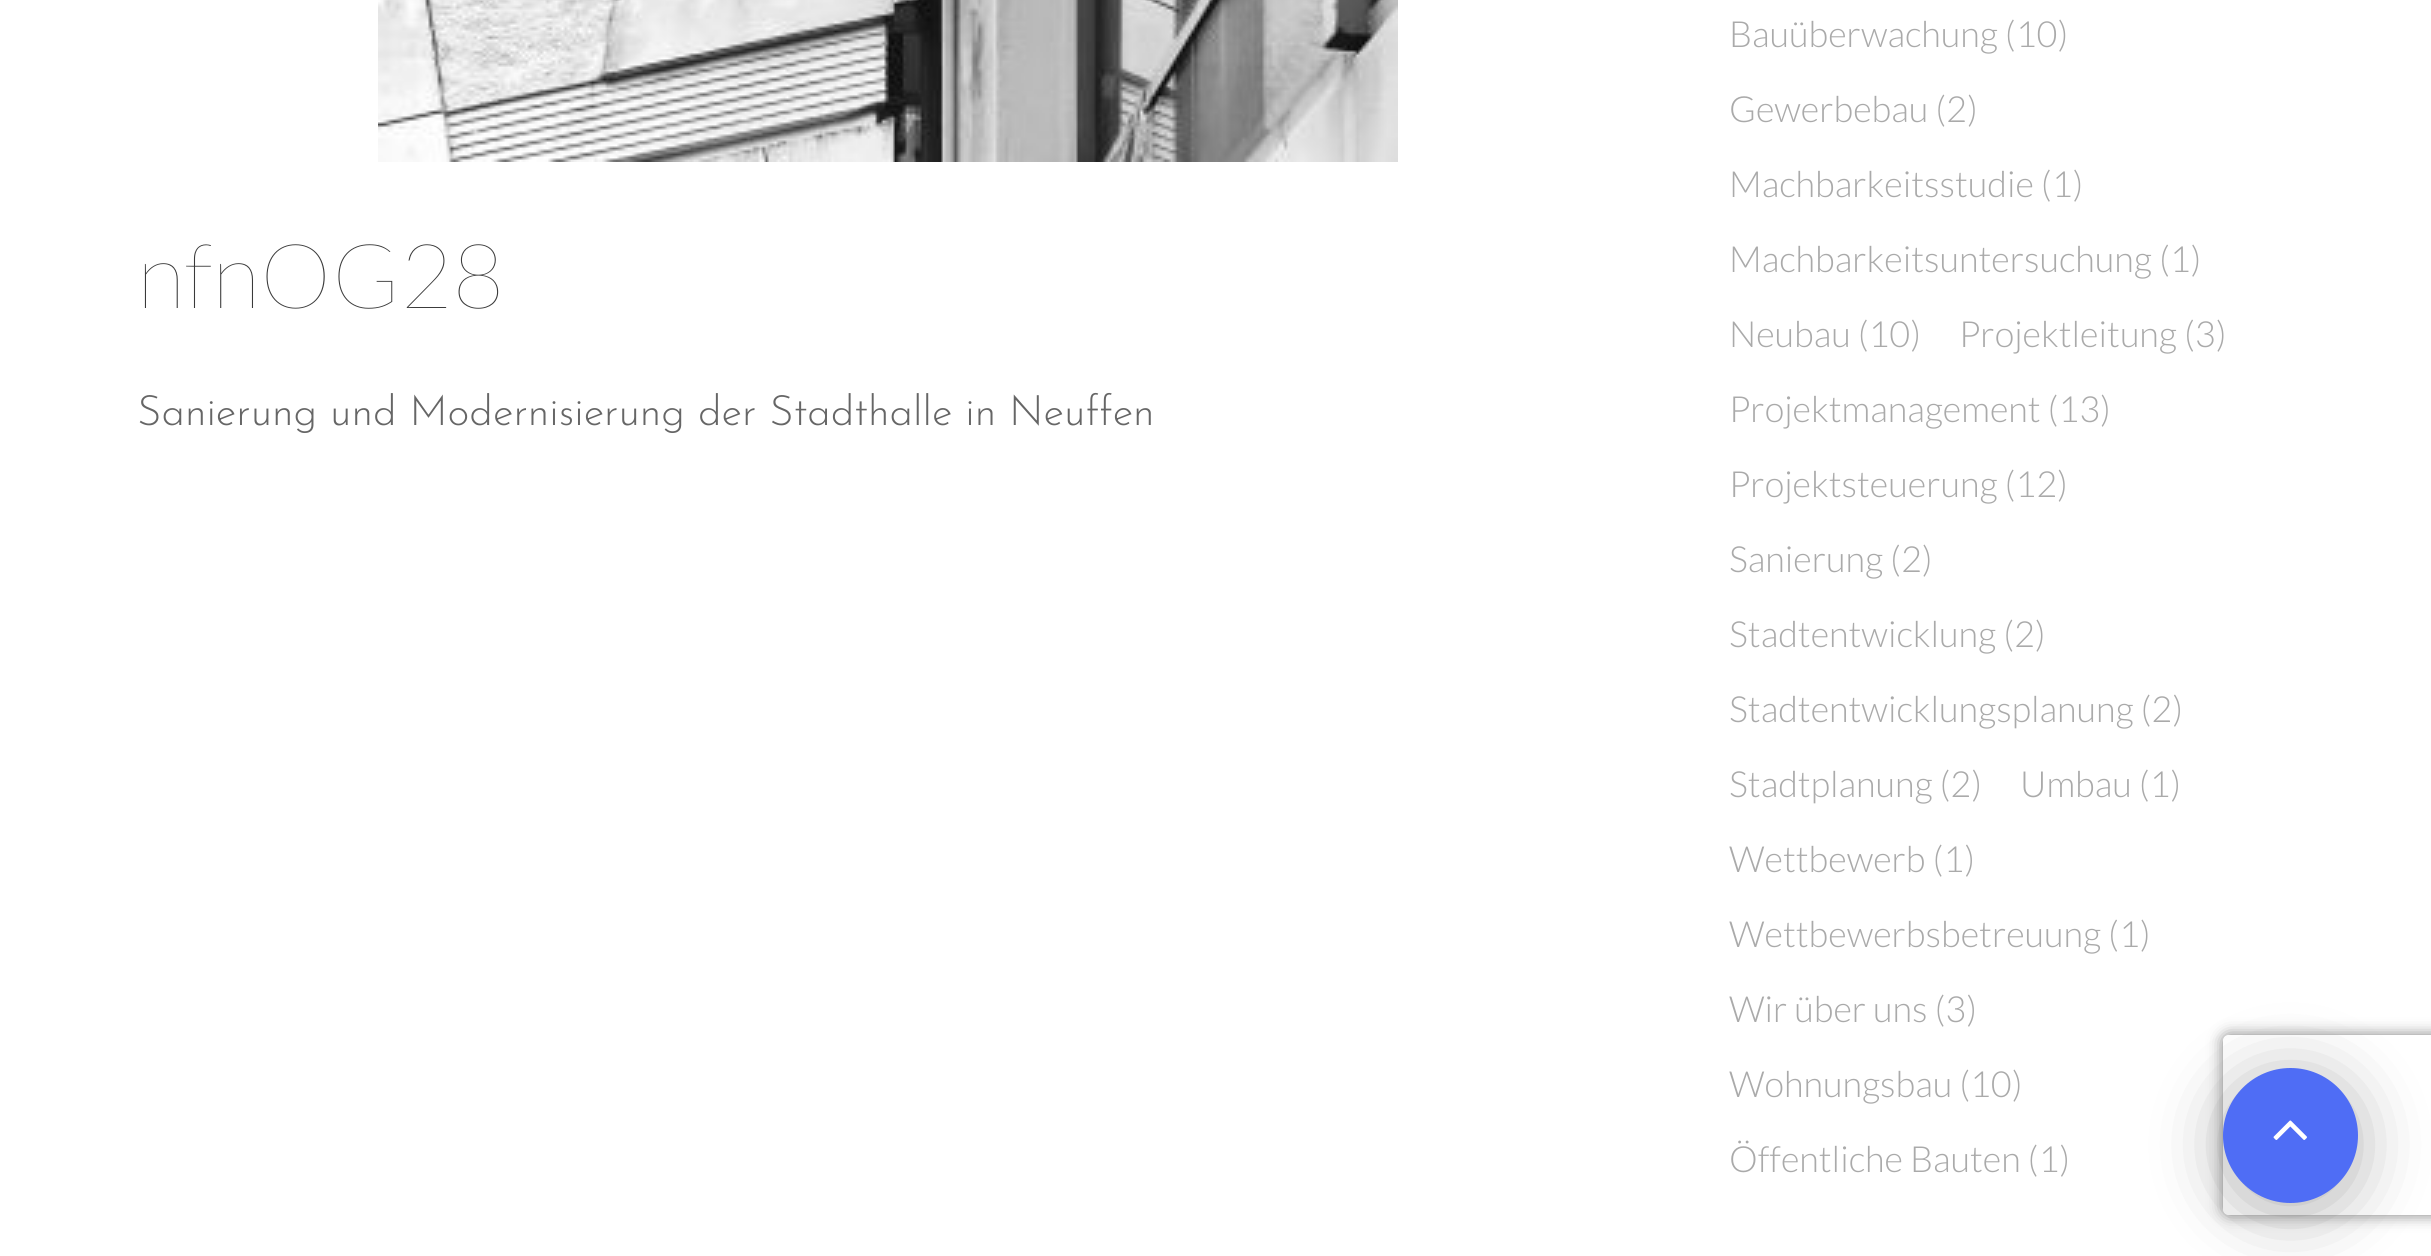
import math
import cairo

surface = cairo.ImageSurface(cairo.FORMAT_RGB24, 2431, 1256)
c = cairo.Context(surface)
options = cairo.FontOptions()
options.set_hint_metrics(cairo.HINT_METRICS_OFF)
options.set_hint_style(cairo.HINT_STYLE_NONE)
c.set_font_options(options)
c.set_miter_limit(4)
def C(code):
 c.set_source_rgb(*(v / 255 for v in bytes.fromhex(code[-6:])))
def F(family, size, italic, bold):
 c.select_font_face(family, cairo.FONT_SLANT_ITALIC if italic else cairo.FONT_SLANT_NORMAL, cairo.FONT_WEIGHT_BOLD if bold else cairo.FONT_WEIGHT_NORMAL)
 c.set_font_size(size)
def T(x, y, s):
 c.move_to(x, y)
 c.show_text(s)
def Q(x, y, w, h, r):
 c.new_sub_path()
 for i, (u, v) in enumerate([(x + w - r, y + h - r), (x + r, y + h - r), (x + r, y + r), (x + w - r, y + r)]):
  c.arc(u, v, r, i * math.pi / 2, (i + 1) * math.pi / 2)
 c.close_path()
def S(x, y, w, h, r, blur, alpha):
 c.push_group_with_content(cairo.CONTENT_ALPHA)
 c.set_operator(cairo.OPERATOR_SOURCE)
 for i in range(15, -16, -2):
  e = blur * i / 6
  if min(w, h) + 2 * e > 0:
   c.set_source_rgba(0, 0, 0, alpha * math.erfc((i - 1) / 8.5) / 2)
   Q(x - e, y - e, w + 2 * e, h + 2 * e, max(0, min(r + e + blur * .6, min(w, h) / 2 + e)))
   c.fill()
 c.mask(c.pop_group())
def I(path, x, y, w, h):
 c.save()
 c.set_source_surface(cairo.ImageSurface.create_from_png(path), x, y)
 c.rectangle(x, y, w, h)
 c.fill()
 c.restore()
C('ffffff')
c.paint()
I('1.png',378,0,1020,162)
F('Lato Thin',90,0,0)
C('3a3a3a')
T(137,308,'nfnOG28')
F('Josefin Sans Thin',42,0,0)
C('666666')
T(137,425,'Sanierung und Modernisierung der Stadthalle in Neuffen')
F('Lato Light',36,0,0)
C('aaaaaa')
T(1729,47,'Bauüberwachung (10)')
T(1729,122,'Gewerbebau (2)')
T(1729,197,'Machbarkeitsstudie (1)')
T(1729,272,'Machbarkeitsuntersuchung (1)')
T(1729,347,'Neubau (10)')
T(1959,347,'Projektleitung (3)')
T(1729,422,'Projektmanagement (13)')
T(1729,497,'Projektsteuerung (12)')
T(1729,572,'Sanierung (2)')
T(1729,647,'Stadtentwicklung (2)')
T(1729,722,'Stadtentwicklungsplanung (2)')
T(1729,797,'Stadtplanung (2)')
T(2020,797,'Umbau (1)')
T(1729,872,'Wettbewerb (1)')
T(1729,947,'Wettbewerbsbetreuung (1)')
T(1729,1022,'Wir über uns (3)')
T(1729,1097,'Wohnungsbau (10)')
T(1729,1172,'Öffentliche Bauten (1)')
C('000000')
S(2223,1077,135,135,67.5,34.5,.3)
c.save()
c.set_fill_rule(cairo.FILL_RULE_EVEN_ODD)
c.new_path()
c.move_to(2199,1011)
c.line_to(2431,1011)
c.line_to(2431,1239)
c.line_to(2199,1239)
c.close_path()
c.move_to(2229,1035)
c.line_to(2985,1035)
c.curve_to(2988.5,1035,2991,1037.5,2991,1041)
c.line_to(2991,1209)
c.curve_to(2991,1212.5,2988.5,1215,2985,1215)
c.line_to(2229,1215)
c.curve_to(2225.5,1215,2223,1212.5,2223,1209)
c.line_to(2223,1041)
c.curve_to(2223,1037.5,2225.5,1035,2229,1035)
c.close_path()
c.clip()
C('808080')
S(2223,1035,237,180,6,7.5,1)
c.restore()
C('4f6df5')
c.arc(2290.5,1135.5,66,0,2 * math.pi)
c.fill_preserve()
c.set_line_width(3)
c.stroke()
I('2.png',2273,1120,34,20)
surface.write_to_png('o.png')
